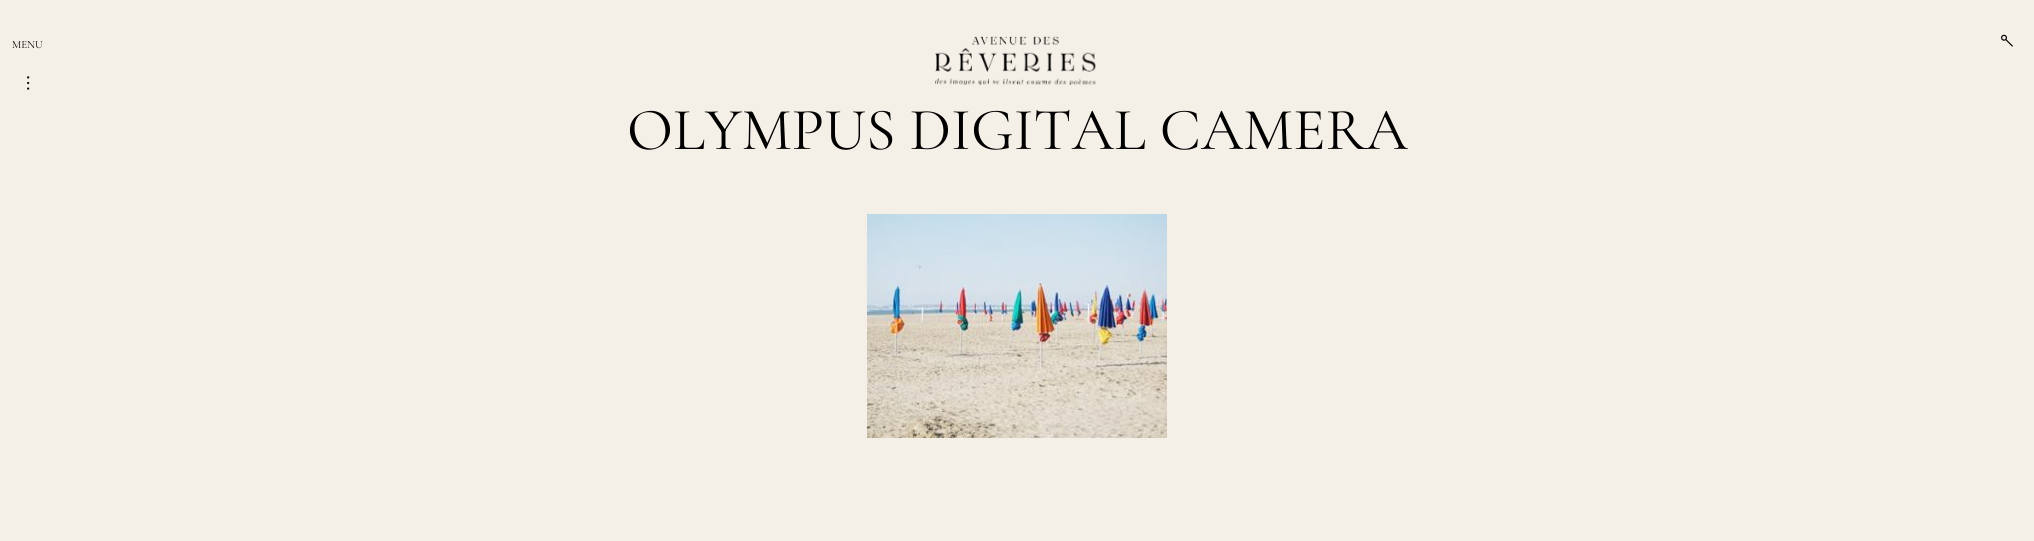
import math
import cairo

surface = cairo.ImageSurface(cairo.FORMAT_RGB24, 2034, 541)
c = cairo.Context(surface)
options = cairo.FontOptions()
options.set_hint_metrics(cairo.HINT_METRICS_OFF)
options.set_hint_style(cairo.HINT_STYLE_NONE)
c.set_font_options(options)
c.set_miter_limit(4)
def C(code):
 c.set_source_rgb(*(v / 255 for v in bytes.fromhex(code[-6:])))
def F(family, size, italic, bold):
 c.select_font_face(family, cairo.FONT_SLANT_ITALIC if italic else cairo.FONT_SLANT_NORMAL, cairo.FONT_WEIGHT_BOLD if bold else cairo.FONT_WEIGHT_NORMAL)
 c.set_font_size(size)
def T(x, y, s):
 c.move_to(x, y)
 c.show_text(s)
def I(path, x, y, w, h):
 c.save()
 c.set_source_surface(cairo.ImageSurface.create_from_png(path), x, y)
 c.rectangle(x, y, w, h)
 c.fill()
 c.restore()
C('f4efe7')
c.paint()
F('Cormorant Garamond Light',11,0,0)
C('000000')
T(12,48,'MENU')
I('1.png',27,76,3,14)
I('2.png',935,36,161,49)
I('3.png',2001,34,12,13)
F('Cormorant Garamond Light',60,0,0)
T(627,149,'OLYMPUS DIGITAL CAMERA')
I('4.png',867,214,300,224)
surface.write_to_png('o.png')
